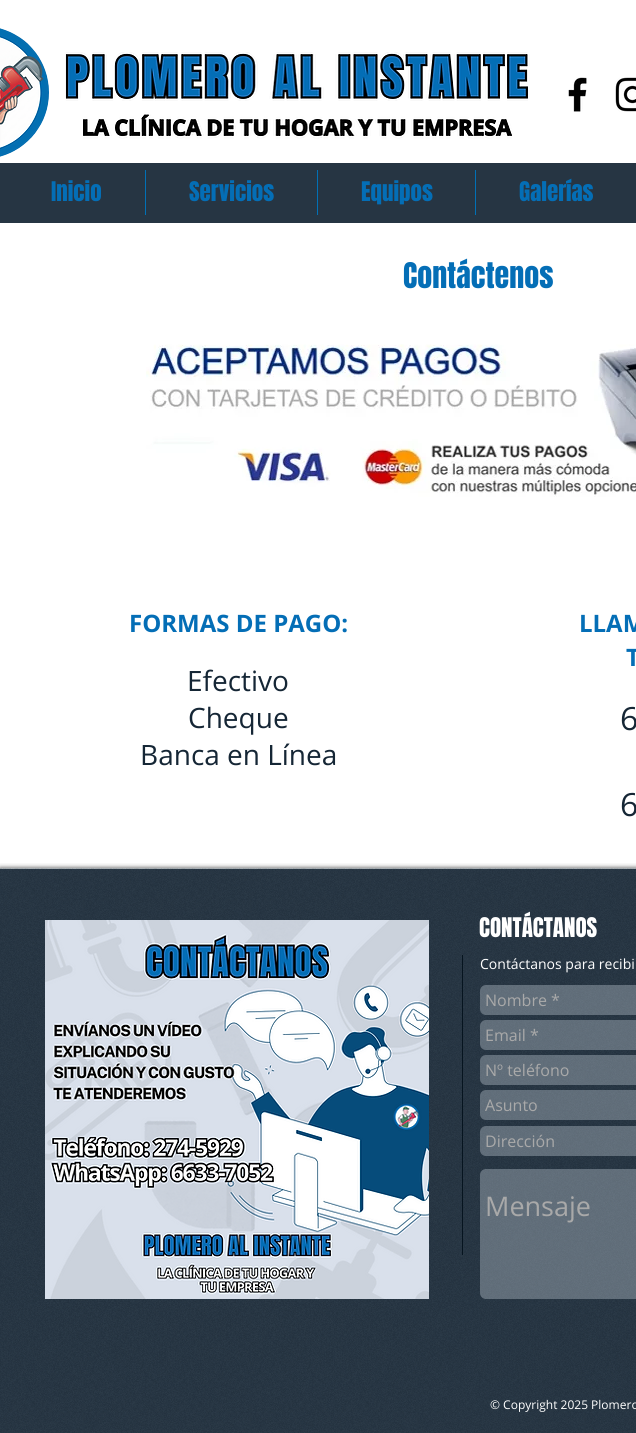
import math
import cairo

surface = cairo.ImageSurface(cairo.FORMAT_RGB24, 636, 1433)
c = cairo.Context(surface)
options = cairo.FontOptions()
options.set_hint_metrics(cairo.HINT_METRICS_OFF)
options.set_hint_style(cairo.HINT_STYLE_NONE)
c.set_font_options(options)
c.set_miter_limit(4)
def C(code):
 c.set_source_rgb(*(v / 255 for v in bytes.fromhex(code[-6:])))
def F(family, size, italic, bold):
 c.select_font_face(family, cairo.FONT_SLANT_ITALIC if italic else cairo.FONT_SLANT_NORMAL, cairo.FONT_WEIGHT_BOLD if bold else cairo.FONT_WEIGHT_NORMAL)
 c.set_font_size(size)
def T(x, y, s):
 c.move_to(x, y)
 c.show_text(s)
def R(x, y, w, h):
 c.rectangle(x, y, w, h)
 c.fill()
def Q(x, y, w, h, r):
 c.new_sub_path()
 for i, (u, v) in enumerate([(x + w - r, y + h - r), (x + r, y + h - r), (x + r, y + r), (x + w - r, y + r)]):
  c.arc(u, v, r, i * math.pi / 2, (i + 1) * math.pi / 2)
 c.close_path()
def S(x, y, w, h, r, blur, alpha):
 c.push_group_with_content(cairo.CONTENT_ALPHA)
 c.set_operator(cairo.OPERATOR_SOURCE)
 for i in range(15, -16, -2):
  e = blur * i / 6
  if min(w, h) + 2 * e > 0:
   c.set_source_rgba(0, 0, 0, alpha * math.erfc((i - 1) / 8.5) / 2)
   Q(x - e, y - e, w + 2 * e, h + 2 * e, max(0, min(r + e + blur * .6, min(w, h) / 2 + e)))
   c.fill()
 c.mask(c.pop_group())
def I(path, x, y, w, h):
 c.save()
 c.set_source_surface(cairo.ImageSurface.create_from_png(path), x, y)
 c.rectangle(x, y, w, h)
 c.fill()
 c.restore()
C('ffffff')
c.paint()
I('1.png',0,28,49,129)
I('2.png',65,52,465,87)
I('3.png',568,77,19,35)
I('4.png',615,77,21,35)
C('263543')
R(0,163,636,60)
F('Anton',23,0,0)
C('046eb6')
T(51,201,'Inicio')
C('0170b5')
R(145,170,1,45)
C('046eb6')
T(189,201,'Servicios')
C('0170b5')
R(317,170,1,45)
C('046eb6')
T(361,201,'Equipos')
C('0170b5')
R(475,170,1,45)
C('046eb6')
T(519,201,'Galerías')
F('Anton',30,0,0)
T(403,288,'Contáctenos')
I('5.png',146,344,490,153)
F('Open Sans',24,0,1)
T(129,632,'FORMAS DE PAGO:')
F('Open Sans',28,0,0)
C('152635')
T(187,691,'Efectivo')
T(188,728,'Cheque')
T(140,765,'Banca en Línea')
F('Open Sans',24,0,1)
C('046eb6')
T(579,632,'LLAM')
T(626,666,'T')
F('Open Sans',32,0,0)
C('152635')
T(620,730,'6')
T(620,816,'6')
C('263543')
R(0,869,636,564)
C('a6adb2')
R(0,868,636,1)
c.save()
c.rectangle(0,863,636,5)
c.clip()
C('000000')
S(0,868,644,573,0,2.5,.7)
c.restore()
I('6.png',0,868,636,565)
I('7.png',45,920,384,379)
C('06141f')
R(462,955,1,300)
F('Anton',23,0,0)
C('ffffff')
T(479,937,'CONTÁCTANOS')
F('Open Sans',14,0,0)
T(480,969,'Contáctanos para recibi')
c.set_source_rgba(0.851,0.878,0.922,0.33)
Q(480,985,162,30,6)
c.fill()
F('Open Sans',16,0,0)
C('a9a9a9')
T(485,1006,'Nombre *')
c.set_source_rgba(0.851,0.878,0.922,0.33)
Q(480,1020,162,30,6)
c.fill()
C('a9a9a9')
T(485,1041,'Email *')
c.set_source_rgba(0.851,0.878,0.922,0.33)
Q(480,1055,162,30,6)
c.fill()
C('a9a9a9')
T(485,1076,'Nº teléfono')
c.set_source_rgba(0.851,0.878,0.922,0.33)
Q(480,1090,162,30,6)
c.fill()
C('a9a9a9')
T(485,1111,'Asunto')
c.set_source_rgba(0.851,0.878,0.922,0.33)
Q(480,1126,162,30,6)
c.fill()
C('a9a9a9')
T(485,1147,'Dirección')
c.set_source_rgba(0.851,0.878,0.922,0.33)
Q(480,1169,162,130,6)
c.fill()
F('Open Sans',27,0,0)
C('a9a9a9')
T(485,1216,'Mensaje')
F('Open Sans',12,0,0)
C('ffffff')
T(490,1409,'© Copyright 2025 Plomero')
surface.write_to_png('o.png')
